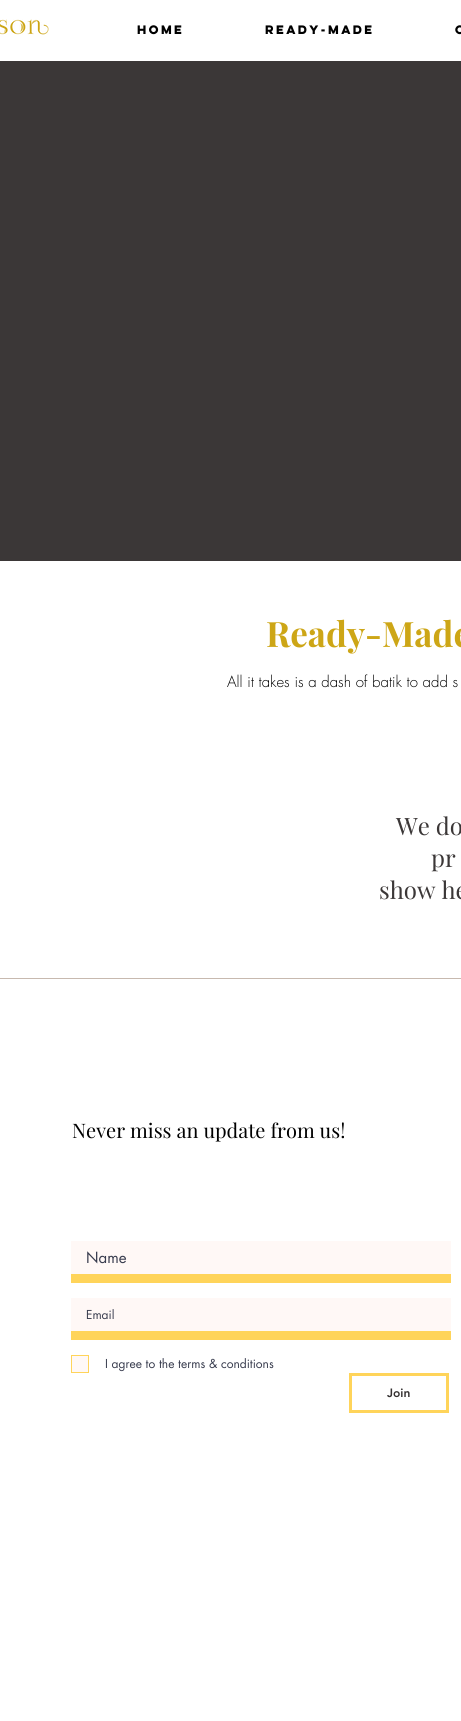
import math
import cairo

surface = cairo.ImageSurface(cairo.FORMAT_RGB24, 461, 1721)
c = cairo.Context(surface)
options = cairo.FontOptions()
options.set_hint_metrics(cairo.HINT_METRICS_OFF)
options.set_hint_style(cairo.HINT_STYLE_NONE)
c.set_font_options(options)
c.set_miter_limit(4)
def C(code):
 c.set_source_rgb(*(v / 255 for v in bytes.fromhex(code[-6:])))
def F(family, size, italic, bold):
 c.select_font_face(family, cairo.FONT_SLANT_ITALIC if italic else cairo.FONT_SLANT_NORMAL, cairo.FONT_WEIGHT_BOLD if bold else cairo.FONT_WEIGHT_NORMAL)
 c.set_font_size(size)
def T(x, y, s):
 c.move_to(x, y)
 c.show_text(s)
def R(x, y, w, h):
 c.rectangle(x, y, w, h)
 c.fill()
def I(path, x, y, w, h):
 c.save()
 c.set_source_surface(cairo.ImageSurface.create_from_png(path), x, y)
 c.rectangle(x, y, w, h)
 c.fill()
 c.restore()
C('ffffff')
c.paint()
I('1.png',0,19,49,16)
F('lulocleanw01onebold',11,0,1)
C('000000')
T(137,34,'Home')
T(265,34,'Ready-Made')
T(455,34,'C')
C('3b3737')
R(0,61,461,500)
F('Playfair Display',35,0,1)
C('cda616')
T(266,647,'Ready-Made')
F('futura Light',15,0,0)
C('000000')
T(227,687,'All it takes is a dash of batik to add s')
F('Playfair Display',24,0,0)
C('3b3737')
T(396,835,'We do')
T(431,867,'pr')
T(379,899,'show he')
C('c7b9af')
R(0,978,461,1)
F('Playfair Display',20,0,0)
C('000000')
T(72,1138,'Never miss an update from us!')
C('fff8f6')
R(71,1241,380,33)
C('ffd45a')
R(71,1274,380,9)
F('futura',15,0,0)
C('373b4d')
T(86,1263,'Name')
C('fff8f6')
R(71,1298,380,33)
C('ffd45a')
R(71,1331,380,9)
F('futura',12,0,0)
C('373b4d')
T(86,1319,'Email')
C('fff8f6')
c.rectangle(71.5,1355.5,17,17)
c.fill_preserve()
C('ffd45a')
c.set_line_width(1)
c.stroke()
C('373b4d')
T(105,1368,'I agree to the terms & conditions')
c.rectangle(350.5,1374.5,97,37)
C('ffd45a')
c.set_line_width(3)
c.stroke()
F('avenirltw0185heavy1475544 Black',12,0,0)
C('353131')
T(387,1397,'Join')
surface.write_to_png('o.png')
